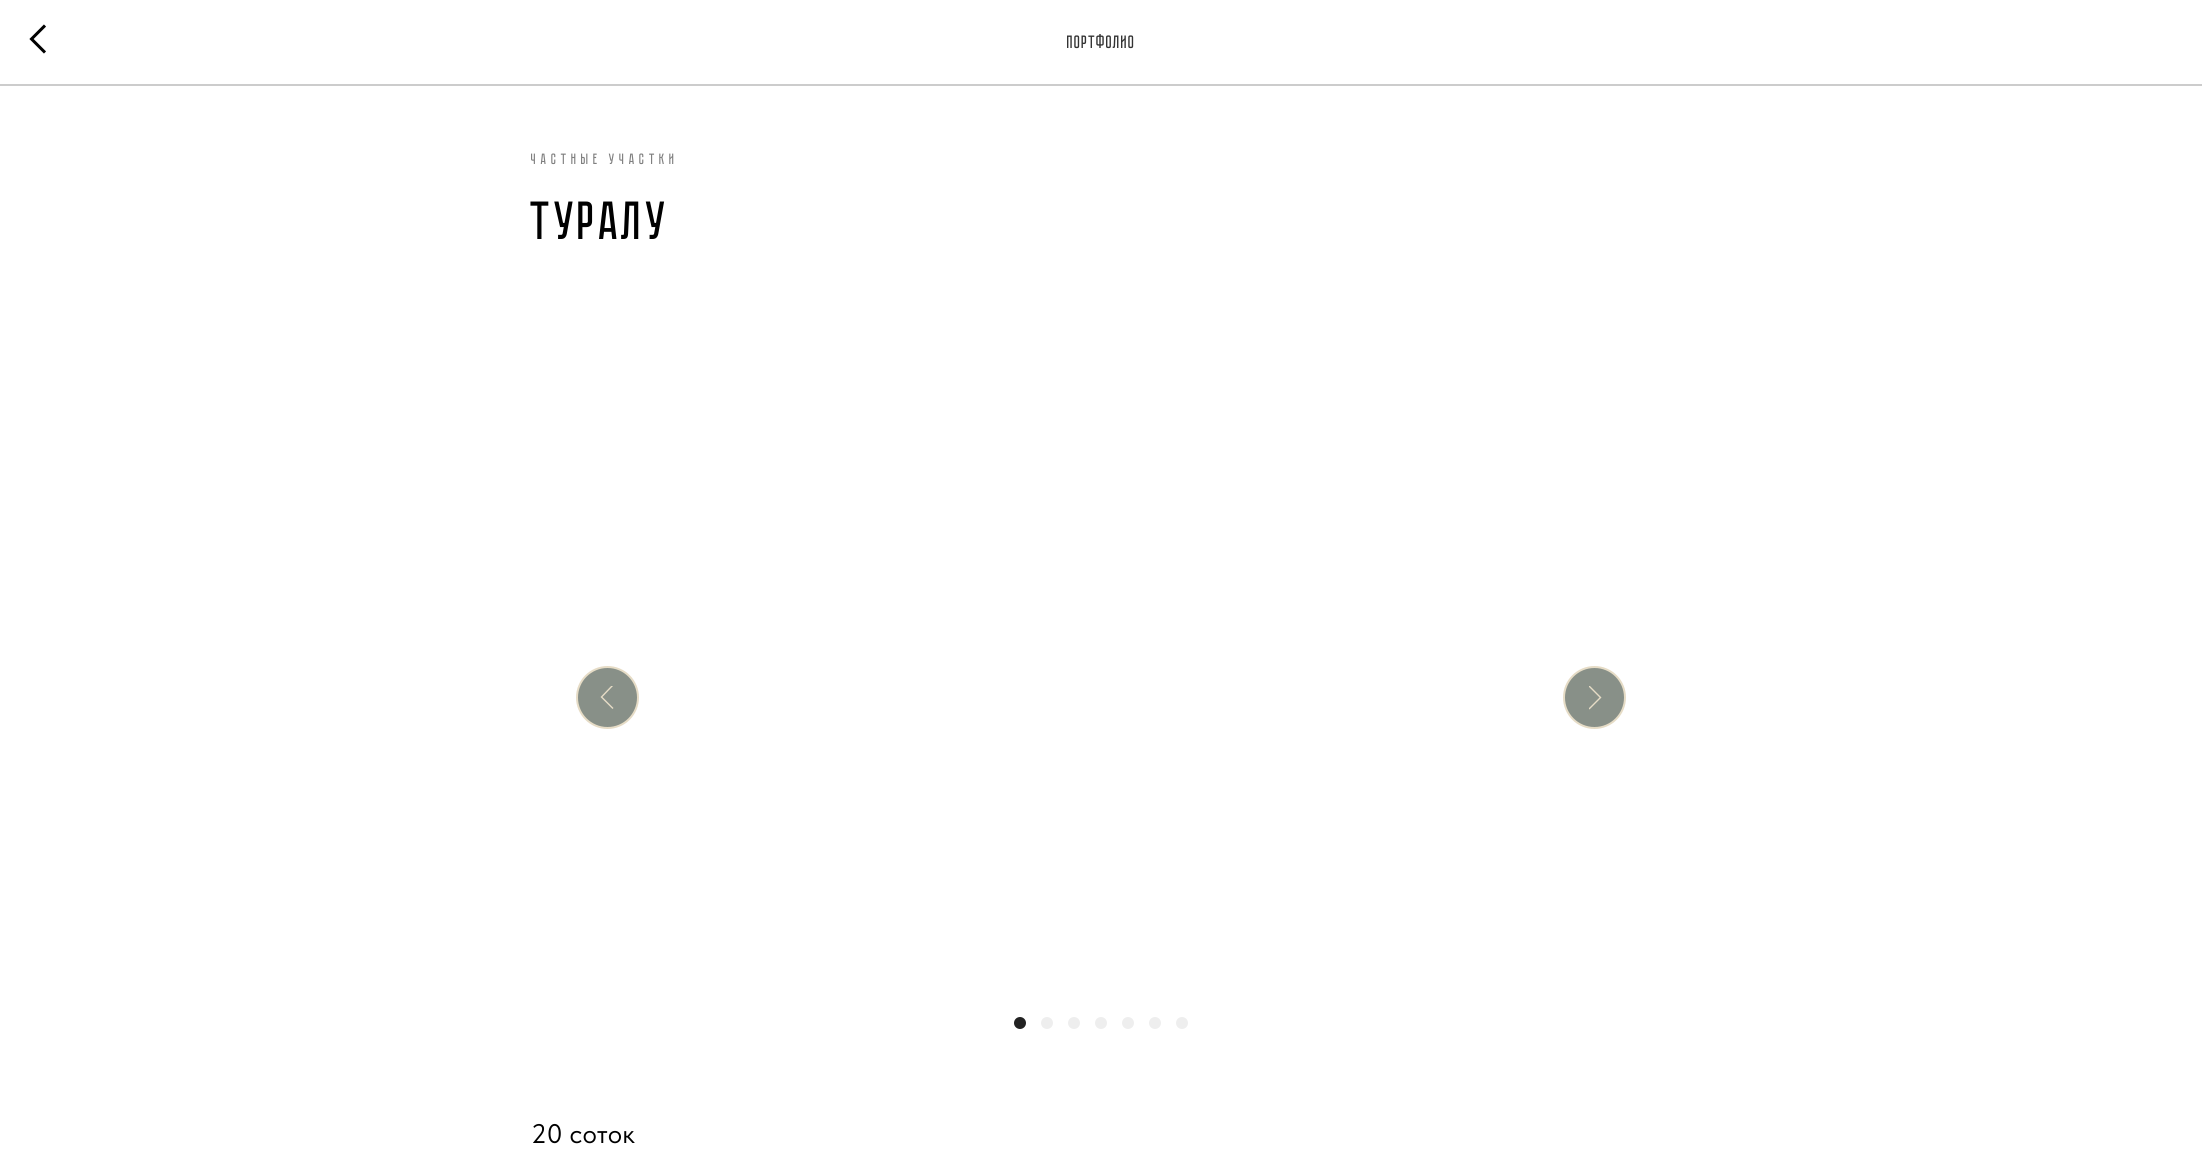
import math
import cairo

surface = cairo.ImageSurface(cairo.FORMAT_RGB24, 2202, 1156)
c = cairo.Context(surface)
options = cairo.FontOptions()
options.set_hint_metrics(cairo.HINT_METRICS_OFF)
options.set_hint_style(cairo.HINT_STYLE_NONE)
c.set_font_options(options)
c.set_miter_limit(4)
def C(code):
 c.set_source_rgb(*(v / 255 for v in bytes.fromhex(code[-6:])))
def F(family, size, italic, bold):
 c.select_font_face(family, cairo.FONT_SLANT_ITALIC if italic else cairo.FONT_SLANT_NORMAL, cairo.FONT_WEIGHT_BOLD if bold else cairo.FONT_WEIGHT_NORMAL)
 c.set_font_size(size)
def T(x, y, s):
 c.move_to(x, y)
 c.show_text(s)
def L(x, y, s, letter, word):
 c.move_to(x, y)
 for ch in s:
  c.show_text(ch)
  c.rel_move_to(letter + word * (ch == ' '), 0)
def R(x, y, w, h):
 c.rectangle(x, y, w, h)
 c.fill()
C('ffffff')
c.paint()
C('cccccc')
R(0,84,2202,2)
c.new_path()
c.move_to(45,52.5)
c.line_to(31.5,39)
c.line_to(45,25.5)
C('000000')
c.set_line_width(3)
c.stroke()
F('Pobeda',18,0,1)
C('333333')
T(1067,48,'Портфолио')
F('Pobeda',15,0,1)
C('808080')
L(531,164,'ЧАСТНЫЕ УЧАСТКИ',3.75,0)
F('Pobeda',54,0,1)
C('000000')
T(531,239,'Туралу')
C('889088')
c.new_path()
c.arc(607.5,697.5,30.5,0,2 * math.pi)
c.fill_preserve()
C('e6dcc6')
c.set_line_width(2)
c.stroke()
c.save()
c.rectangle(600,686,14,24)
c.clip()
c.new_path()
c.move_to(613,708.5)
c.line_to(601.5,697)
c.line_to(613,685)
c.set_line_width(1.4)
c.stroke()
c.restore()
C('889088')
c.arc(1594.5,697.5,30.5,0,2 * math.pi)
c.fill_preserve()
C('e6dcc6')
c.stroke()
c.save()
c.rectangle(1589,686,13,24)
c.clip()
c.new_path()
c.move_to(1589,686)
c.line_to(1600.5,697.5)
c.line_to(1589,709)
c.set_line_width(1.4)
c.stroke()
c.restore()
C('222222')
c.arc(1020,1023,6,0,2 * math.pi)
c.fill()
C('eeeeee')
c.arc(1047,1023,6,0,2 * math.pi)
c.fill()
c.arc(1074,1023,6,0,2 * math.pi)
c.fill()
c.arc(1101,1023,6,0,2 * math.pi)
c.fill()
c.arc(1128,1023,6,0,2 * math.pi)
c.fill()
c.arc(1155,1023,6,0,2 * math.pi)
c.fill()
c.arc(1182,1023,6,0,2 * math.pi)
c.fill()
F('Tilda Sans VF',27,0,0)
C('000000')
T(531,1143,'20 соток')
surface.write_to_png('o.png')
